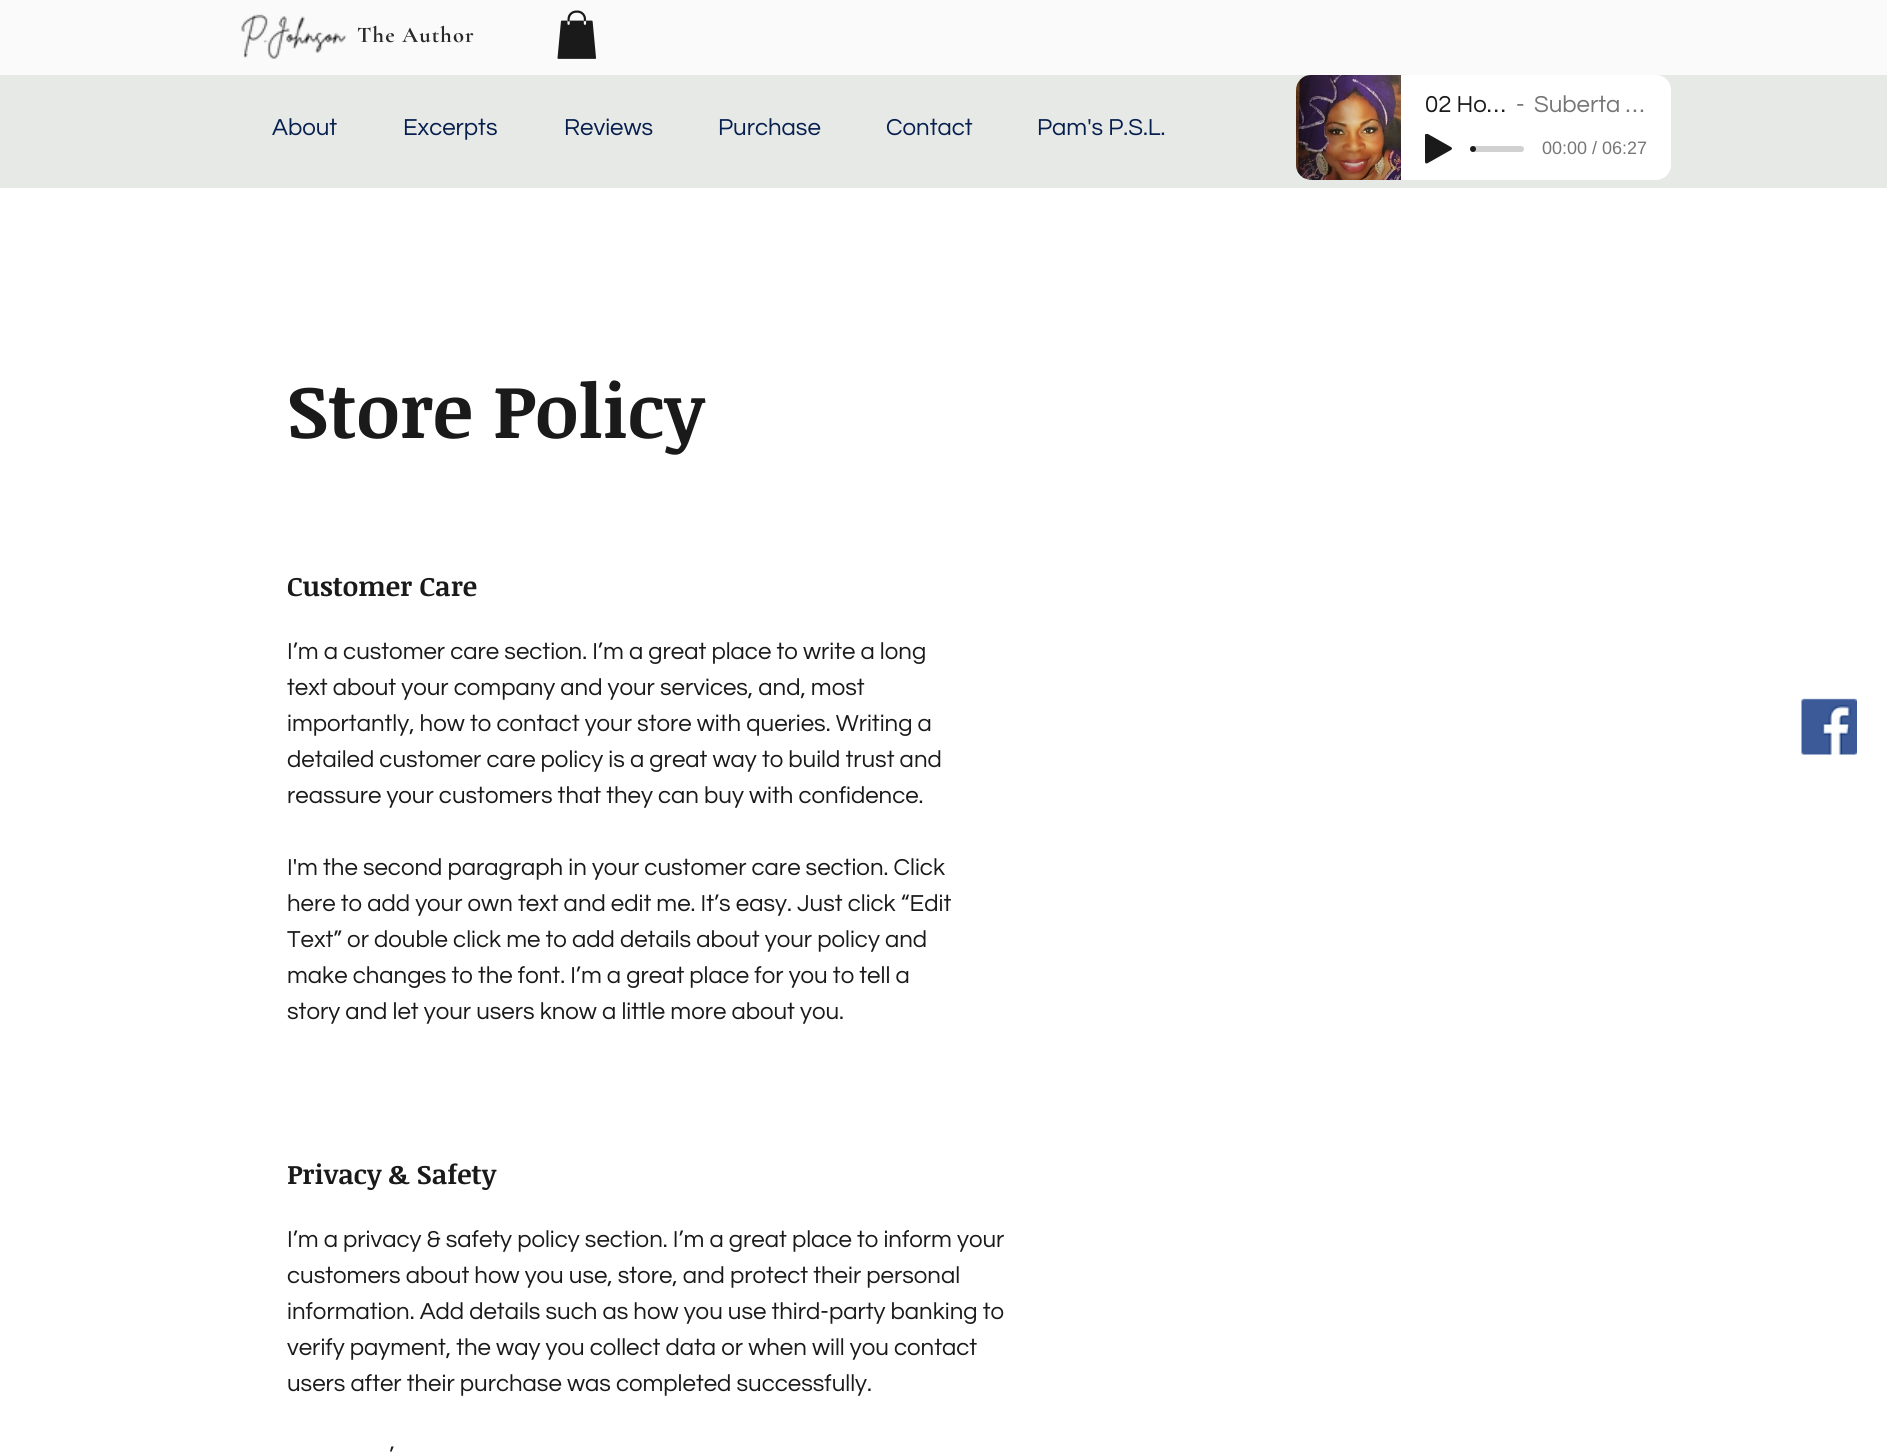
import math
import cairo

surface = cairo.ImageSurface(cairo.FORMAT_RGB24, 1887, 1452)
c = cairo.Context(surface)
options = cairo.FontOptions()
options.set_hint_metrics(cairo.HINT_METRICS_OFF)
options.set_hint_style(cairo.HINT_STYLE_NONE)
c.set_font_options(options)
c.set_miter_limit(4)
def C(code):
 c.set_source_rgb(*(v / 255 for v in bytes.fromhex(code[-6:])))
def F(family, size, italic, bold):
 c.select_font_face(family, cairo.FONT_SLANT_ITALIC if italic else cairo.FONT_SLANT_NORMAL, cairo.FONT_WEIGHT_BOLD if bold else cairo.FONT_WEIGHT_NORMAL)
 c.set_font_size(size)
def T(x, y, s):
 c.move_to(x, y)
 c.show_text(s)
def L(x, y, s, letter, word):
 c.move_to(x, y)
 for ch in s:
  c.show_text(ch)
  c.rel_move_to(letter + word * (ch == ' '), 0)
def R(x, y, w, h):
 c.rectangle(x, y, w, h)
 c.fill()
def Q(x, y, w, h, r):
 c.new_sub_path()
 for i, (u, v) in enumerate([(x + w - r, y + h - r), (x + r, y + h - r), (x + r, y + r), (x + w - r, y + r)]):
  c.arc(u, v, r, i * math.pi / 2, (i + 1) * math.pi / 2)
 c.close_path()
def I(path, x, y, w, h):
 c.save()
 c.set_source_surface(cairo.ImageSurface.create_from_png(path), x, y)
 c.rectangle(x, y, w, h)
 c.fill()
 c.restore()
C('ffffff')
c.paint()
C('fafafa')
R(0,0,1887,75)
I('1.png',241,14,106,45)
F('Cormorant Garamond',22.5,0,1)
C('292929')
L(357,42,'The Author',1.1,0)
I('2.png',557,10,40,49)
C('e6e9e6')
R(0,75,1887,113)
F('Questrial',24,0,0)
C('071f4e')
T(272,135,'About')
T(403,135,'Excerpts')
T(564,135,'Reviews')
T(718,135,'Purchase')
T(886,135,'Contact')
T(1037,135,'Pam\'s P.S.L.')
C('ffffff')
Q(1296,75,375,105,15)
c.fill()
I('3.png',1296,75,105,105)
C('1a1a1a')
T(1425,112,'02 Ho…')
C('767676')
T(1516,112,'-')
T(1534,112,'Suberta …')
I('4.png',1425,134,27,30)
C('d1d1d1')
Q(1473,146,51,6,3)
c.fill()
C('1a1a1a')
c.arc(1473,149,3,0,2 * math.pi)
c.fill()
F('Liberation Sans',18,0,0)
C('767676')
T(1542,154,'00:00 / 06:27')
F('Noticia Text',75,0,1)
C('1a1a1a')
T(287,438,'Store Policy')
F('Noticia Text',27,0,1)
T(287,596,'Customer Care')
F('Questrial',24,0,0)
T(287,659,'I’m a customer care section. I’m a great place to write a long')
T(287,695,'text about your company and your services, and, most')
T(287,731,'importantly, how to contact your store with queries. Writing a')
T(287,767,'detailed customer care policy is a great way to build trust and')
T(287,803,'reassure your customers that they can buy with confidence.')
T(287,875,'I\'m the second paragraph in your customer care section. Click')
T(287,911,'here to add your own text and edit me. It’s easy. Just click “Edit')
T(287,947,'Text” or double click me to add details about your policy and')
T(287,983,'make changes to the font. I’m a great place for you to tell a')
T(287,1019,'story and let your users know a little more about you.')
F('Noticia Text',27,0,1)
T(287,1184,'Privacy & Safety')
F('Questrial',24,0,0)
T(287,1247,'I’m a privacy & safety policy section. I’m a great place to inform your')
T(287,1283,'customers about how you use, store, and protect their personal')
T(287,1319,'information. Add details such as how you use third-party banking to')
T(287,1355,'verify payment, the way you collect data or when will you contact')
T(287,1391,'users after their purchase was completed successfully.')
T(389,1463,'’')
I('5.png',1801,698,56,57)
surface.write_to_png('o.png')
